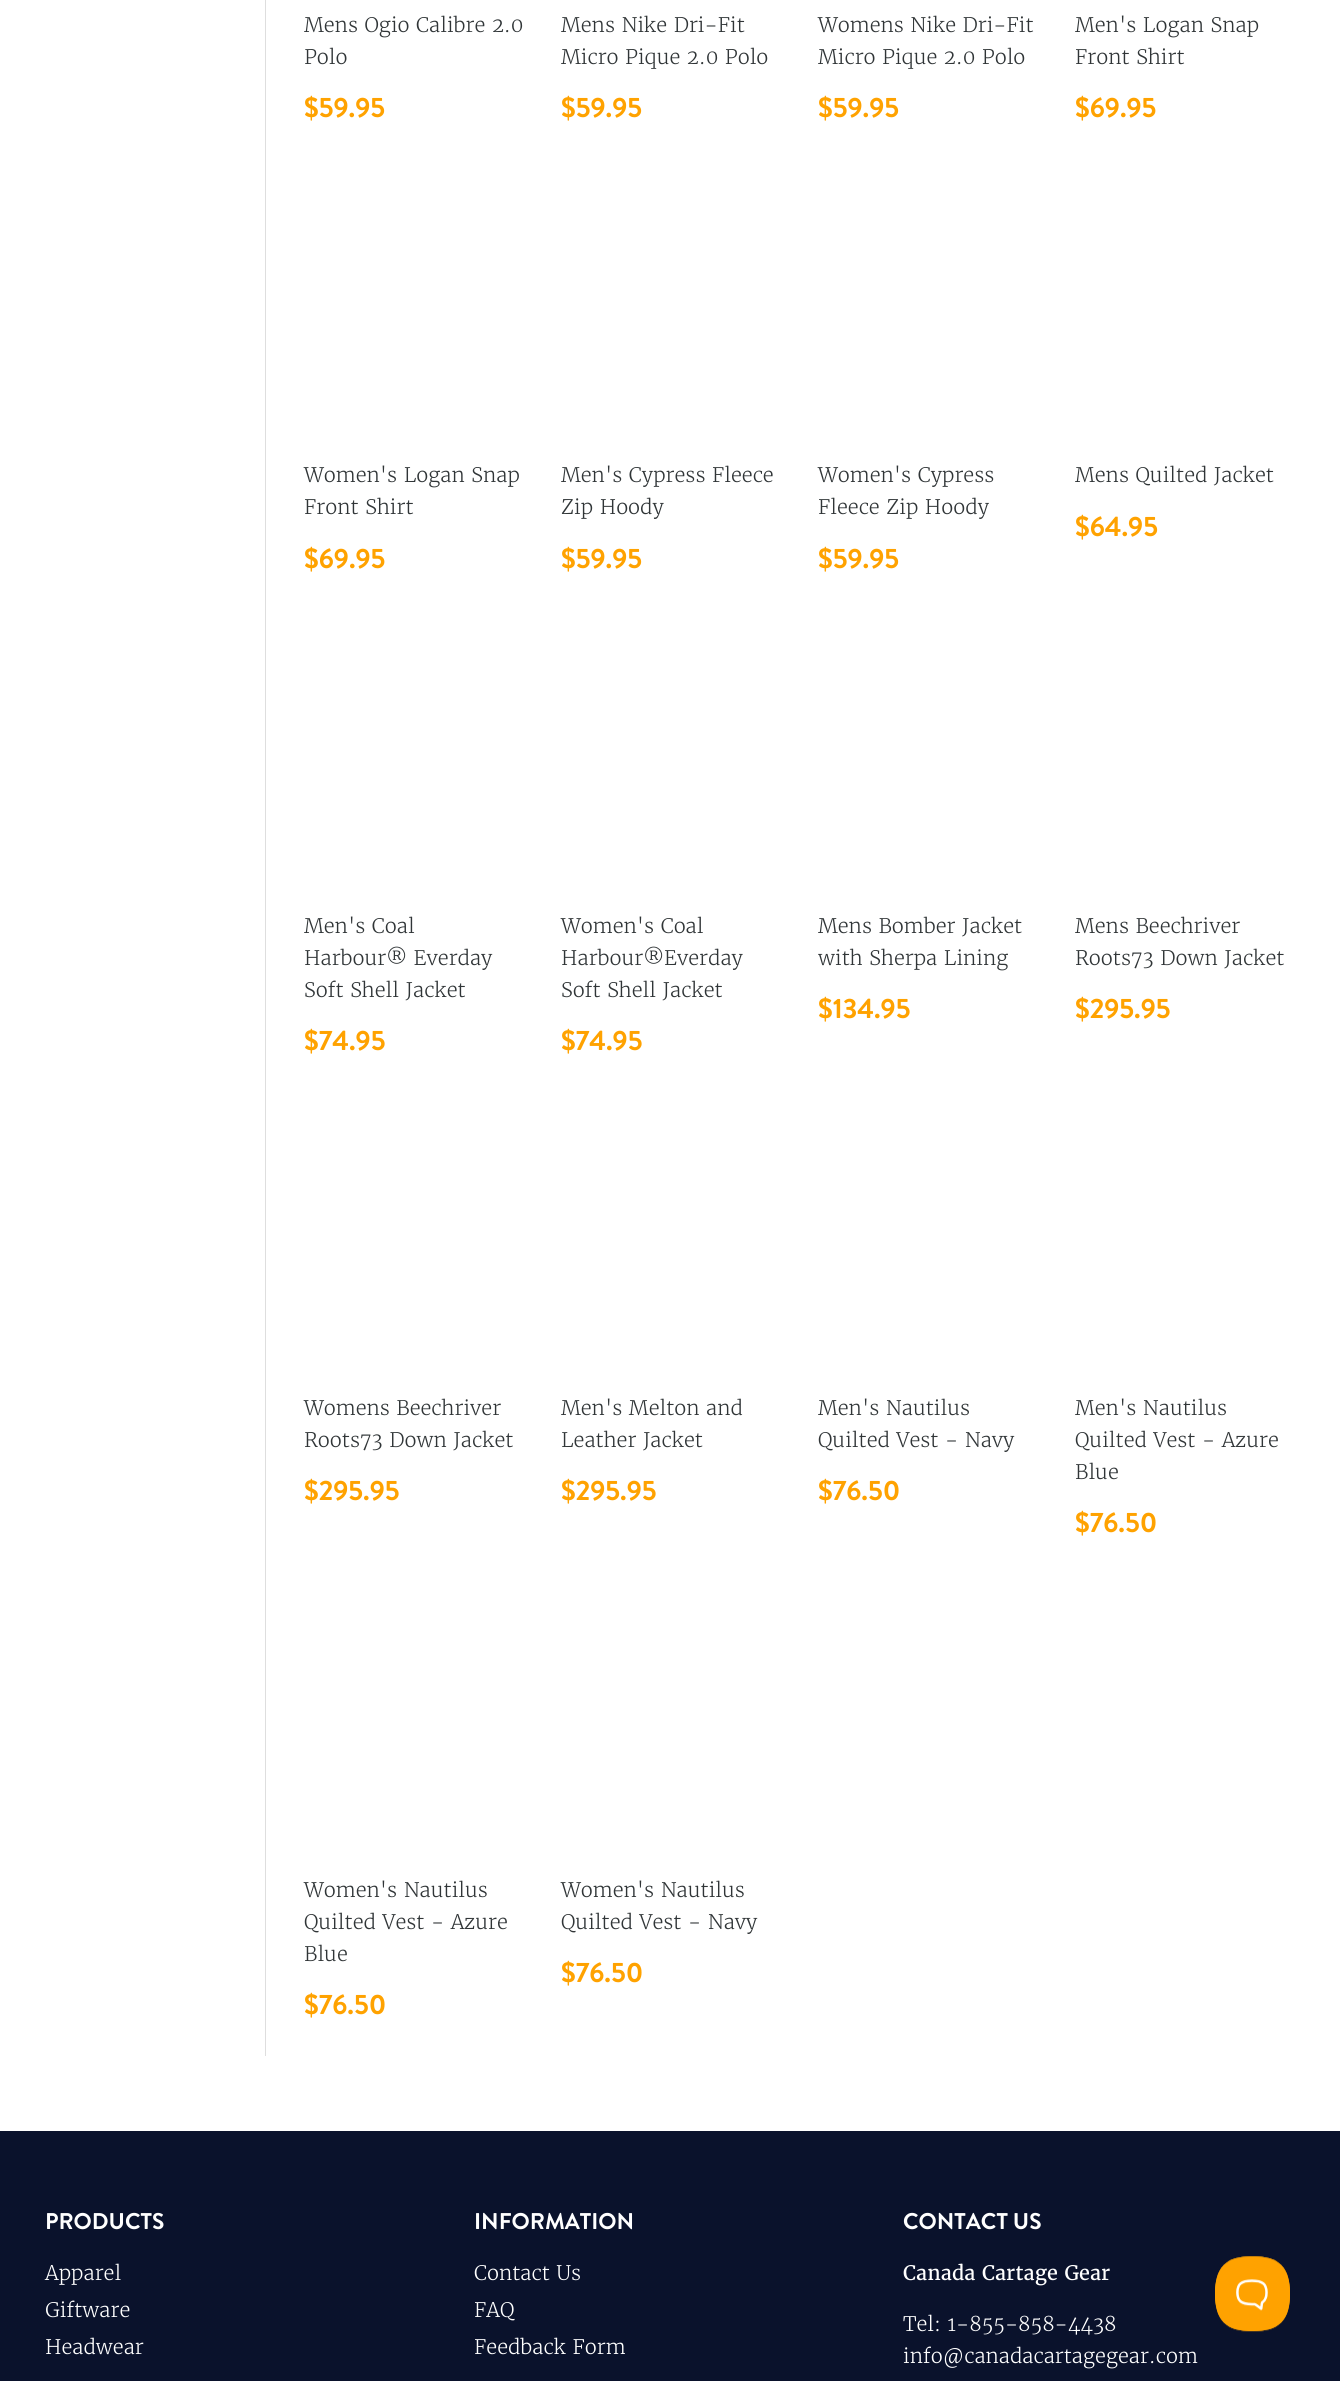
import math
import cairo

surface = cairo.ImageSurface(cairo.FORMAT_RGB24, 1340, 2381)
c = cairo.Context(surface)
options = cairo.FontOptions()
options.set_hint_metrics(cairo.HINT_METRICS_OFF)
options.set_hint_style(cairo.HINT_STYLE_NONE)
c.set_font_options(options)
c.set_miter_limit(4)
def C(code):
 c.set_source_rgb(*(v / 255 for v in bytes.fromhex(code[-6:])))
def F(family, size, italic, bold):
 c.select_font_face(family, cairo.FONT_SLANT_ITALIC if italic else cairo.FONT_SLANT_NORMAL, cairo.FONT_WEIGHT_BOLD if bold else cairo.FONT_WEIGHT_NORMAL)
 c.set_font_size(size)
def T(x, y, s):
 c.move_to(x, y)
 c.show_text(s)
def R(x, y, w, h):
 c.rectangle(x, y, w, h)
 c.fill()
def I(path, x, y, w, h):
 c.save()
 c.set_source_surface(cairo.ImageSurface.create_from_png(path), x, y)
 c.rectangle(x, y, w, h)
 c.fill()
 c.restore()
C('ffffff')
c.paint()
C('dedede')
R(265,0,1,2056)
F('Merriweather Light',20,0,0)
C('303537')
T(304,32,'Mens Ogio Calibre 2.0')
T(304,64,'Polo')
F('Brandon Grotesque',28,0,1)
C('ffa200')
T(304,117,'$59.95')
F('Merriweather Light',20,0,0)
C('303537')
T(561,32,'Mens Nike Dri-Fit')
T(561,64,'Micro Pique 2.0 Polo')
F('Brandon Grotesque',28,0,1)
C('ffa200')
T(561,117,'$59.95')
F('Merriweather Light',20,0,0)
C('303537')
T(818,32,'Womens Nike Dri-Fit')
T(818,64,'Micro Pique 2.0 Polo')
F('Brandon Grotesque',28,0,1)
C('ffa200')
T(818,117,'$59.95')
F('Merriweather Light',20,0,0)
C('303537')
T(1075,32,'Men\'s Logan Snap')
T(1075,64,'Front Shirt')
F('Brandon Grotesque',28,0,1)
C('ffa200')
T(1075,117,'$69.95')
F('Merriweather Light',20,0,0)
C('303537')
T(304,482,'Women\'s Logan Snap')
T(304,514,'Front Shirt')
F('Brandon Grotesque',28,0,1)
C('ffa200')
T(304,568,'$69.95')
F('Merriweather Light',20,0,0)
C('303537')
T(561,482,'Men\'s Cypress Fleece')
T(561,514,'Zip Hoody')
F('Brandon Grotesque',28,0,1)
C('ffa200')
T(561,568,'$59.95')
F('Merriweather Light',20,0,0)
C('303537')
T(818,482,'Women\'s Cypress')
T(818,514,'Fleece Zip Hoody')
F('Brandon Grotesque',28,0,1)
C('ffa200')
T(818,568,'$59.95')
F('Merriweather Light',20,0,0)
C('303537')
T(1075,482,'Mens Quilted Jacket')
F('Brandon Grotesque',28,0,1)
C('ffa200')
T(1075,536,'$64.95')
F('Merriweather Light',20,0,0)
C('303537')
T(304,933,'Men\'s Coal')
T(304,965,'Harbour® Everday')
T(304,997,'Soft Shell Jacket')
F('Brandon Grotesque',28,0,1)
C('ffa200')
T(304,1050,'$74.95')
F('Merriweather Light',20,0,0)
C('303537')
T(561,933,'Women\'s Coal')
T(561,965,'Harbour®Everday')
T(561,997,'Soft Shell Jacket')
F('Brandon Grotesque',28,0,1)
C('ffa200')
T(561,1050,'$74.95')
F('Merriweather Light',20,0,0)
C('303537')
T(818,933,'Mens Bomber Jacket')
T(818,965,'with Sherpa Lining')
F('Brandon Grotesque',28,0,1)
C('ffa200')
T(818,1018,'$134.95')
F('Merriweather Light',20,0,0)
C('303537')
T(1075,933,'Mens Beechriver')
T(1075,965,'Roots73 Down Jacket')
F('Brandon Grotesque',28,0,1)
C('ffa200')
T(1075,1018,'$295.95')
F('Merriweather Light',20,0,0)
C('303537')
T(304,1415,'Womens Beechriver')
T(304,1447,'Roots73 Down Jacket')
F('Brandon Grotesque',28,0,1)
C('ffa200')
T(304,1500,'$295.95')
F('Merriweather Light',20,0,0)
C('303537')
T(561,1415,'Men\'s Melton and')
T(561,1447,'Leather Jacket')
F('Brandon Grotesque',28,0,1)
C('ffa200')
T(561,1500,'$295.95')
F('Merriweather Light',20,0,0)
C('303537')
T(818,1415,'Men\'s Nautilus')
T(818,1447,'Quilted Vest - Navy')
F('Brandon Grotesque',28,0,1)
C('ffa200')
T(818,1500,'$76.50')
F('Merriweather Light',20,0,0)
C('303537')
T(1075,1415,'Men\'s Nautilus')
T(1075,1447,'Quilted Vest - Azure')
T(1075,1479,'Blue')
F('Brandon Grotesque',28,0,1)
C('ffa200')
T(1075,1532,'$76.50')
F('Merriweather Light',20,0,0)
C('303537')
T(304,1897,'Women\'s Nautilus')
T(304,1929,'Quilted Vest - Azure')
T(304,1961,'Blue')
F('Brandon Grotesque',28,0,1)
C('ffa200')
T(304,2014,'$76.50')
F('Merriweather Light',20,0,0)
C('303537')
T(561,1897,'Women\'s Nautilus')
T(561,1929,'Quilted Vest - Navy')
F('Brandon Grotesque',28,0,1)
C('ffa200')
T(561,1982,'$76.50')
C('0a122c')
R(0,2131,1340,250)
F('Brandon Grotesque',22.75,0,1)
C('ffffff')
T(45,2229,'PRODUCTS')
F('Merriweather Light',20,0,0)
T(45,2280,'Apparel')
T(45,2317,'Giftware')
T(45,2354,'Headwear')
F('Brandon Grotesque',22.75,0,1)
T(474,2229,'INFORMATION')
F('Merriweather Light',20,0,0)
T(474,2280,'Contact Us')
T(474,2317,'FAQ')
T(474,2354,'Feedback Form')
F('Brandon Grotesque',22.75,0,1)
T(903,2229,'CONTACT US')
F('Merriweather',20,0,0)
T(903,2280,'Canada Cartage Gear')
F('Merriweather Light',20,0,0)
T(903,2331,'Tel: 1-855-858-4438')
T(903,2363,'info@canadacartagegear.com')
I('1.png',1215,2256,75,76)
surface.write_to_png('o.png')
